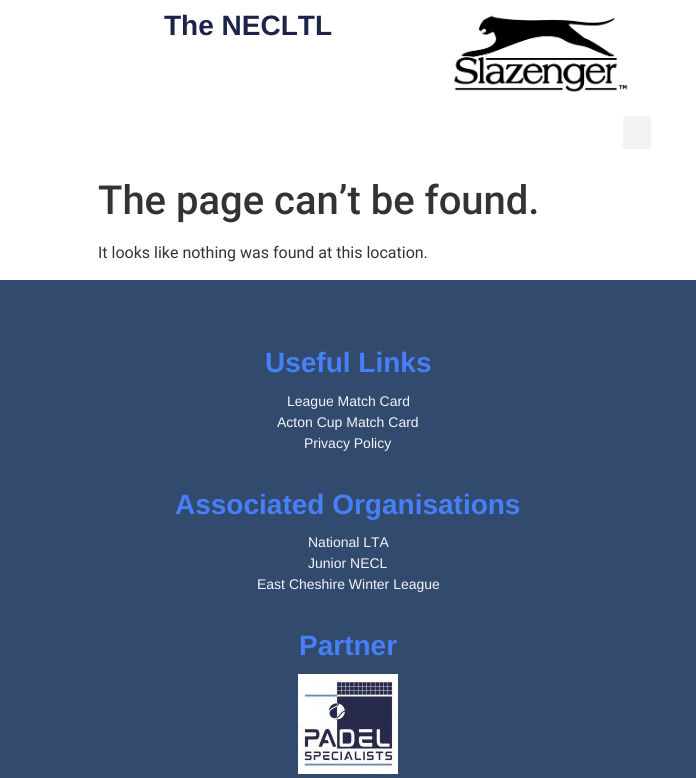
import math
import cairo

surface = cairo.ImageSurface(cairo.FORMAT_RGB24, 696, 778)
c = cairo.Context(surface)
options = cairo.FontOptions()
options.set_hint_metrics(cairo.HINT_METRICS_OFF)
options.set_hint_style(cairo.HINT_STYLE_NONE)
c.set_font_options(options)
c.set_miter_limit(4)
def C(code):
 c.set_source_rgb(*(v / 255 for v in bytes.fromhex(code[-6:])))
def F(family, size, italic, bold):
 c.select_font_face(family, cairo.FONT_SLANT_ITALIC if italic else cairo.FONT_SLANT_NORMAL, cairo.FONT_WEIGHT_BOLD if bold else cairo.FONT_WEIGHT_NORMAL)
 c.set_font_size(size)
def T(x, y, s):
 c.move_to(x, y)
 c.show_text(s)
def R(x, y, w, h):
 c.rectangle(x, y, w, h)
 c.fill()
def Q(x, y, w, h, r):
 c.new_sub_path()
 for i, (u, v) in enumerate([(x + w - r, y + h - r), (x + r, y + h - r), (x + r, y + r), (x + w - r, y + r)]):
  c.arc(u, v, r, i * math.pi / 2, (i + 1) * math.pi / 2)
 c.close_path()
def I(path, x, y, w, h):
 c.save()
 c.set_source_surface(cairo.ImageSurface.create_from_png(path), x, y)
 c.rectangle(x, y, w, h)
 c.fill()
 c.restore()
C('ffffff')
c.paint()
F('Liberation Sans',28,0,1)
C('1c244b')
T(164,35,'The NECLTL')
I('1.png',454,15,174,77)
C('f2f2f2')
Q(623,116,28,33,3)
c.fill()
F('Roboto Medium',40,0,0)
C('333333')
T(98,214,'The page can’t be found.')
F('Roboto',16,0,0)
T(98,258,'It looks like nothing was found at this location.')
C('324a6d')
R(0,280,696,498)
F('Liberation Sans',28,0,1)
C('467ff7')
T(265,372,'Useful Links')
F('Liberation Sans',14,0,0)
C('f3f5f8')
T(287,406,'League Match Card')
T(277,427,'Acton Cup Match Card')
T(304,448,'Privacy Policy')
F('Liberation Sans',28,0,1)
C('467ff7')
T(175,514,'Associated Organisations')
F('Liberation Sans',14,0,0)
C('f3f5f8')
T(308,547,'National LTA')
T(308,568,'Junior NECL')
T(257,589,'East Cheshire Winter League')
F('Liberation Sans',28,0,1)
C('467ff7')
T(299,655,'Partner')
I('2.png',298,674,100,100)
surface.write_to_png('o.png')
